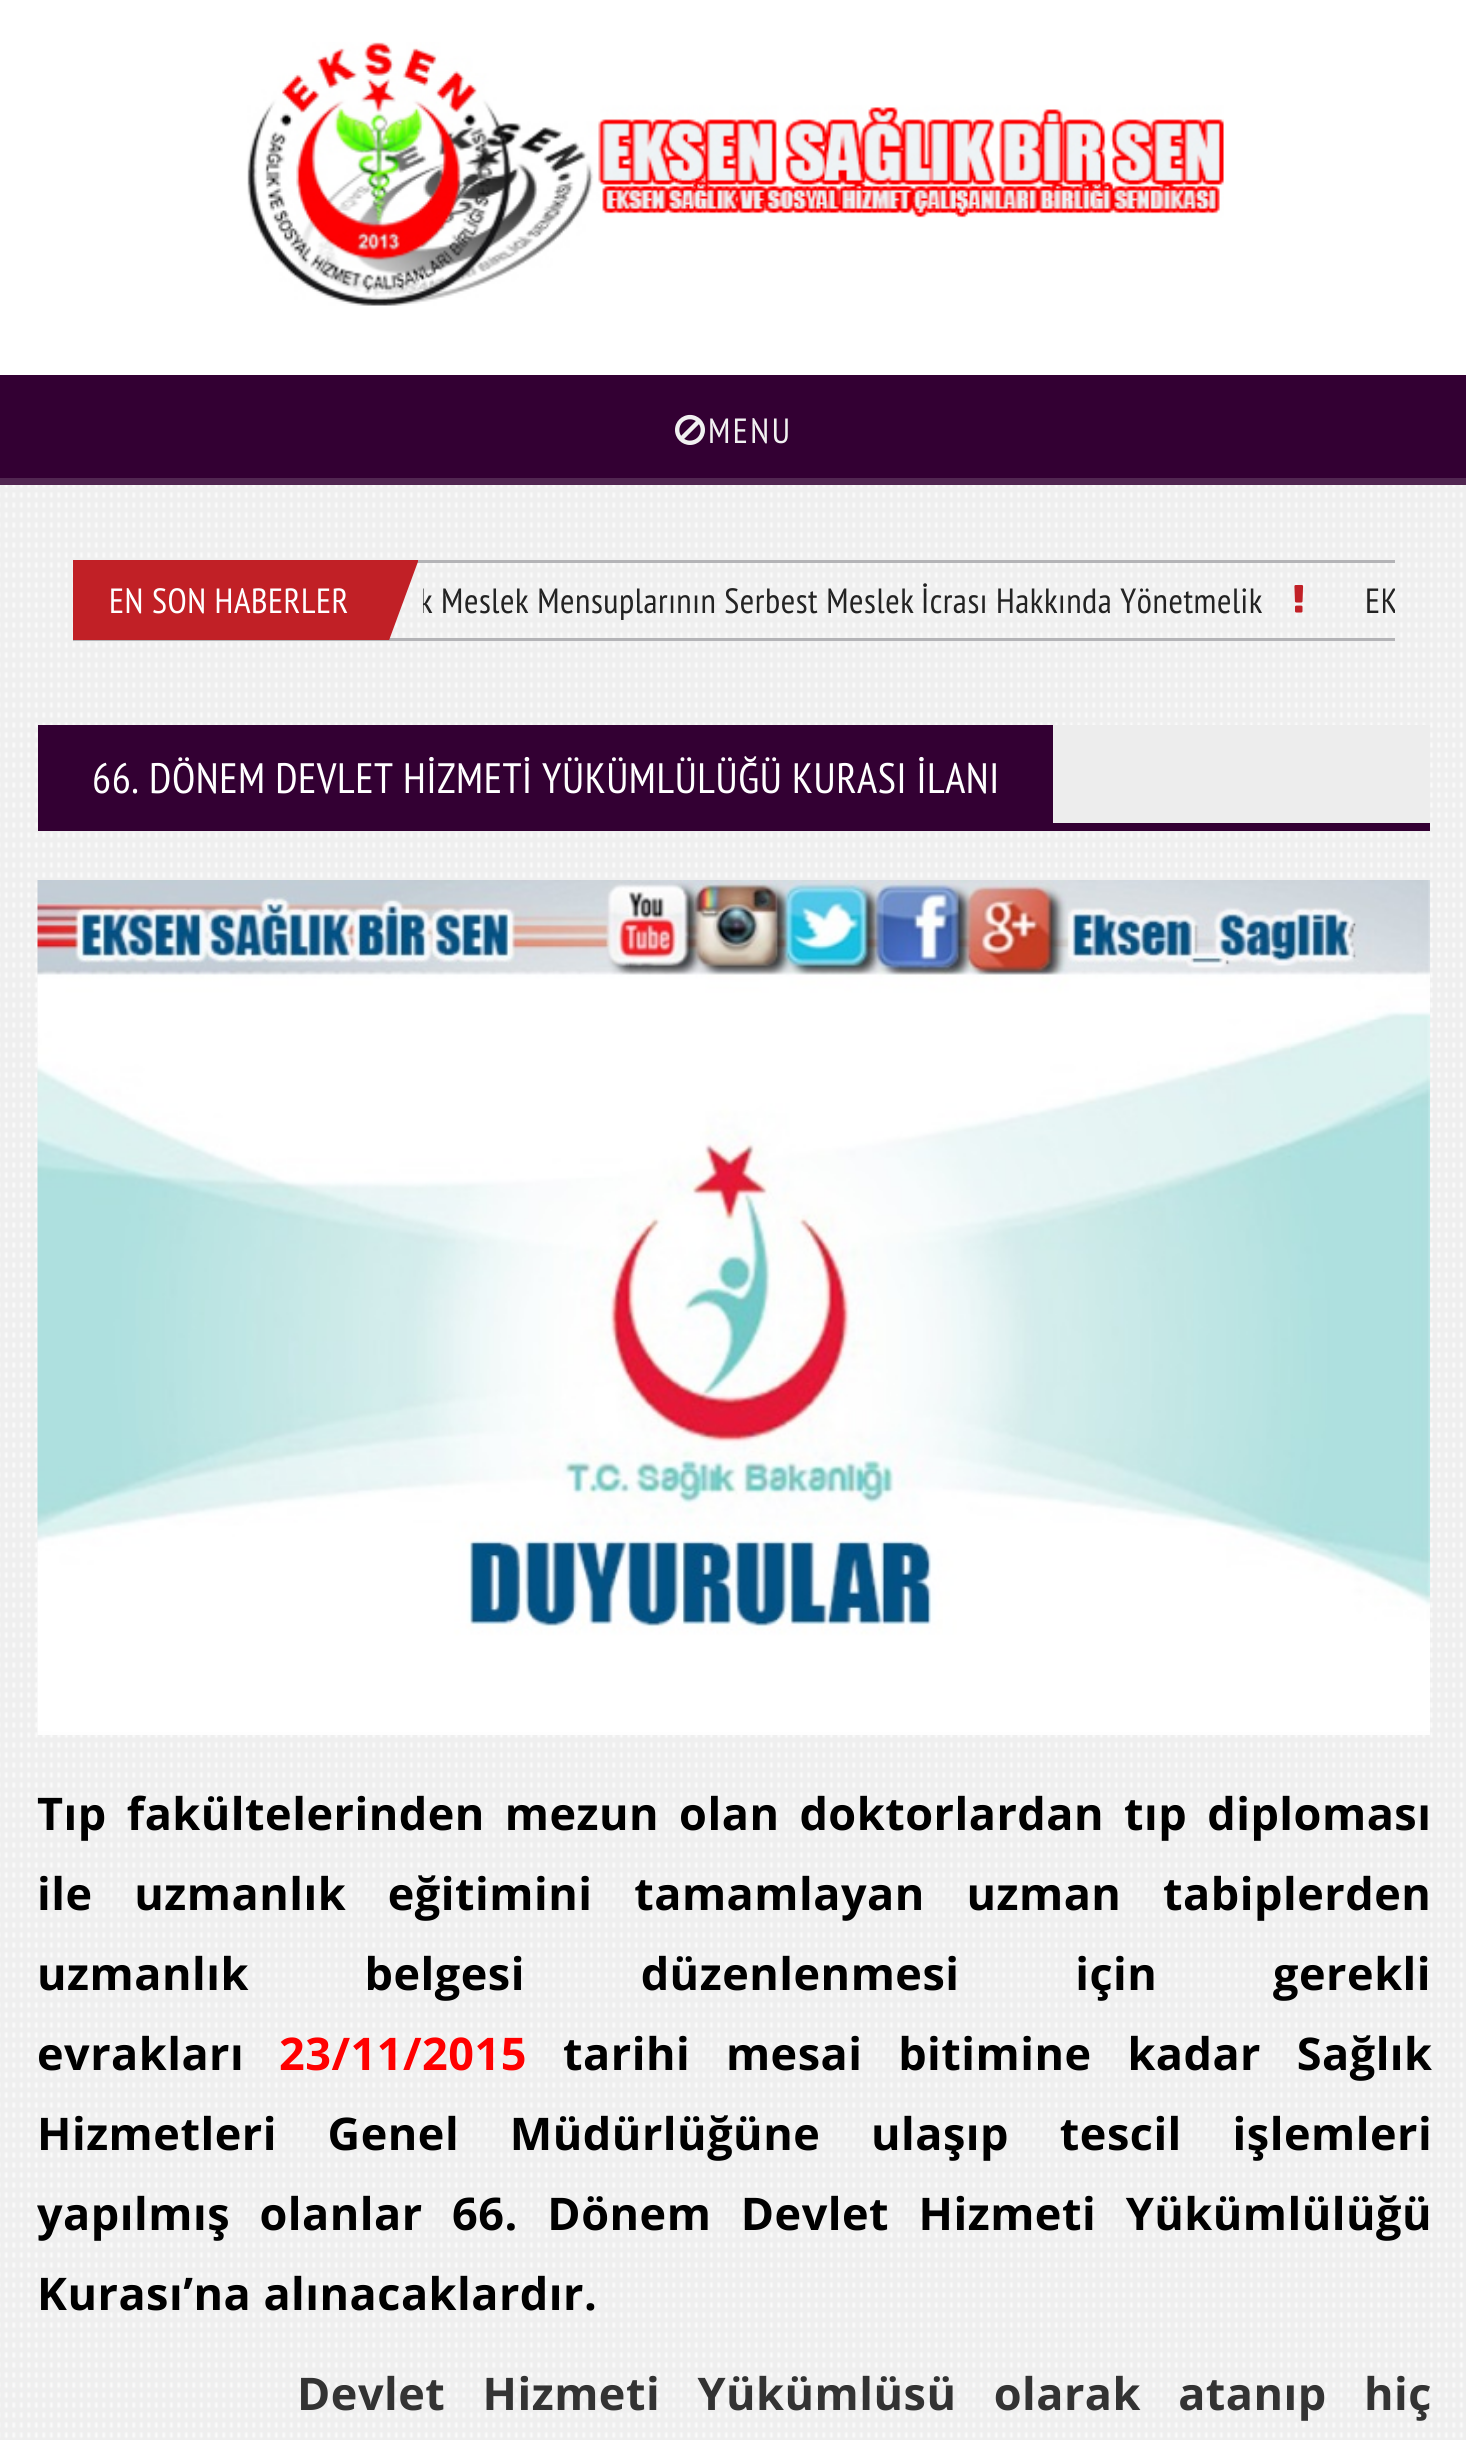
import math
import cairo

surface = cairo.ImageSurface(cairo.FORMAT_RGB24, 1466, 2440)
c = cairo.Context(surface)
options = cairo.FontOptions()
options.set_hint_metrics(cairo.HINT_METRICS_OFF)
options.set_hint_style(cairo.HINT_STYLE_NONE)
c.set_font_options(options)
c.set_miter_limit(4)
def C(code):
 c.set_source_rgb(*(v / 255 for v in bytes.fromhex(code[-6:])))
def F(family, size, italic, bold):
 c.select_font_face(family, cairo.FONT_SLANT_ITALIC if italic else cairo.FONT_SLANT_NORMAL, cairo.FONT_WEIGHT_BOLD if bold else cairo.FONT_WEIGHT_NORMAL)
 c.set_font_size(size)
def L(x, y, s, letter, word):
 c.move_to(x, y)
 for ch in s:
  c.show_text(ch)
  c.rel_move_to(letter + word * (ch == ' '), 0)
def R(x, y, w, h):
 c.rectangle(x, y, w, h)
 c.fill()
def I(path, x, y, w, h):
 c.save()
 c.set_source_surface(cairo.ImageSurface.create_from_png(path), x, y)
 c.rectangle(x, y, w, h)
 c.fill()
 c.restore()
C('ffffff')
c.paint()
I('1.png',247,42,977,264)
C('330033')
R(0,375,1466,110)
c.set_source_rgba(1,1,1,0.15)
R(0,478,1466,7)
C('330033')
R(38,478,1392,7)
c.set_source_rgba(1,1,1,0.15)
R(38,478,1392,7)
I('2.png',675,414,30,31)
F('PT Sans Narrow',35,0,0)
C('f1f1f1')
L(708,443,'MENU',2.5,0)
I('3.png',0,485,1466,1955)
C('b3b3b6')
R(417,560,978,3)
R(73,638,1322,3)
c.save()
c.rectangle(73,560,345,80)
c.clip()
C('c12026')
c.new_path()
c.move_to(340,518)
c.line_to(423,548)
c.line_to(384,654)
c.line_to(302,624)
c.close_path()
c.fill()
c.restore()
C('c12026')
R(73,560,273,80)
C('ffffff')
L(109,613,'EN SON HABERLER',.55,0)
c.save()
c.rectangle(423,563,972,75)
c.clip()
C('232323')
L(419,613,'k Meslek Mensuplarının Serbest Meslek',.55,0)
c.restore()
C('232323')
L(921,613,'İcrası Hakkında Yönetmelik',.55,0)
I('4.png',1294,585,10,28)
c.save()
c.rectangle(423,563,972,75)
c.clip()
L(1365,613,'EK',.55,0)
c.restore()
C('ededed')
R(1054,725,376,98)
C('330033')
R(38,725,1015,98)
F('PT Sans Narrow',42.5,0,0)
C('ffffff')
L(92,793,'66. DÖNEM DEVLET HİZMETİ YÜKÜMLÜLÜĞÜ KURASI İLANI',.55,0)
C('330033')
R(38,823,1392,8)
I('5.png',37,880,1393,855)
F('Open Sans',45,0,1)
C('000000')
L(37,1830,'Tıp fakültelerinden mezun olan doktorlardan tıp diploması',.5,7.75)
L(37,1910,'ile uzmanlık eğitimini tamamlayan uzman tabiplerden',.5,29.5)
L(37,1990,'uzmanlık belgesi düzenlenmesi için gerekli',.5,103.5)
L(37,2070,'evrakları',.5,0)
C('ff0000')
L(279,2070,'23/11/2015',.5,0)
C('000000')
L(563,2070,'tarihi mesai bitimine kadar Sağlık',.5,23.5)
L(37,2150,'Hizmetleri Genel Müdürlüğüne ulaşıp tescil işlemleri',.5,38.5)
L(37,2230,'yapılmış olanlar 66. Dönem Devlet Hizmeti Yükümlülüğü',.5,17.25)
L(37,2310,'Kurası’na alınacaklardır.',.5,0)
C('333333')
L(297,2410,'Devlet Hizmeti Yükümlüsü olarak atanıp hiç',.5,25)
surface.write_to_png('o.png')
